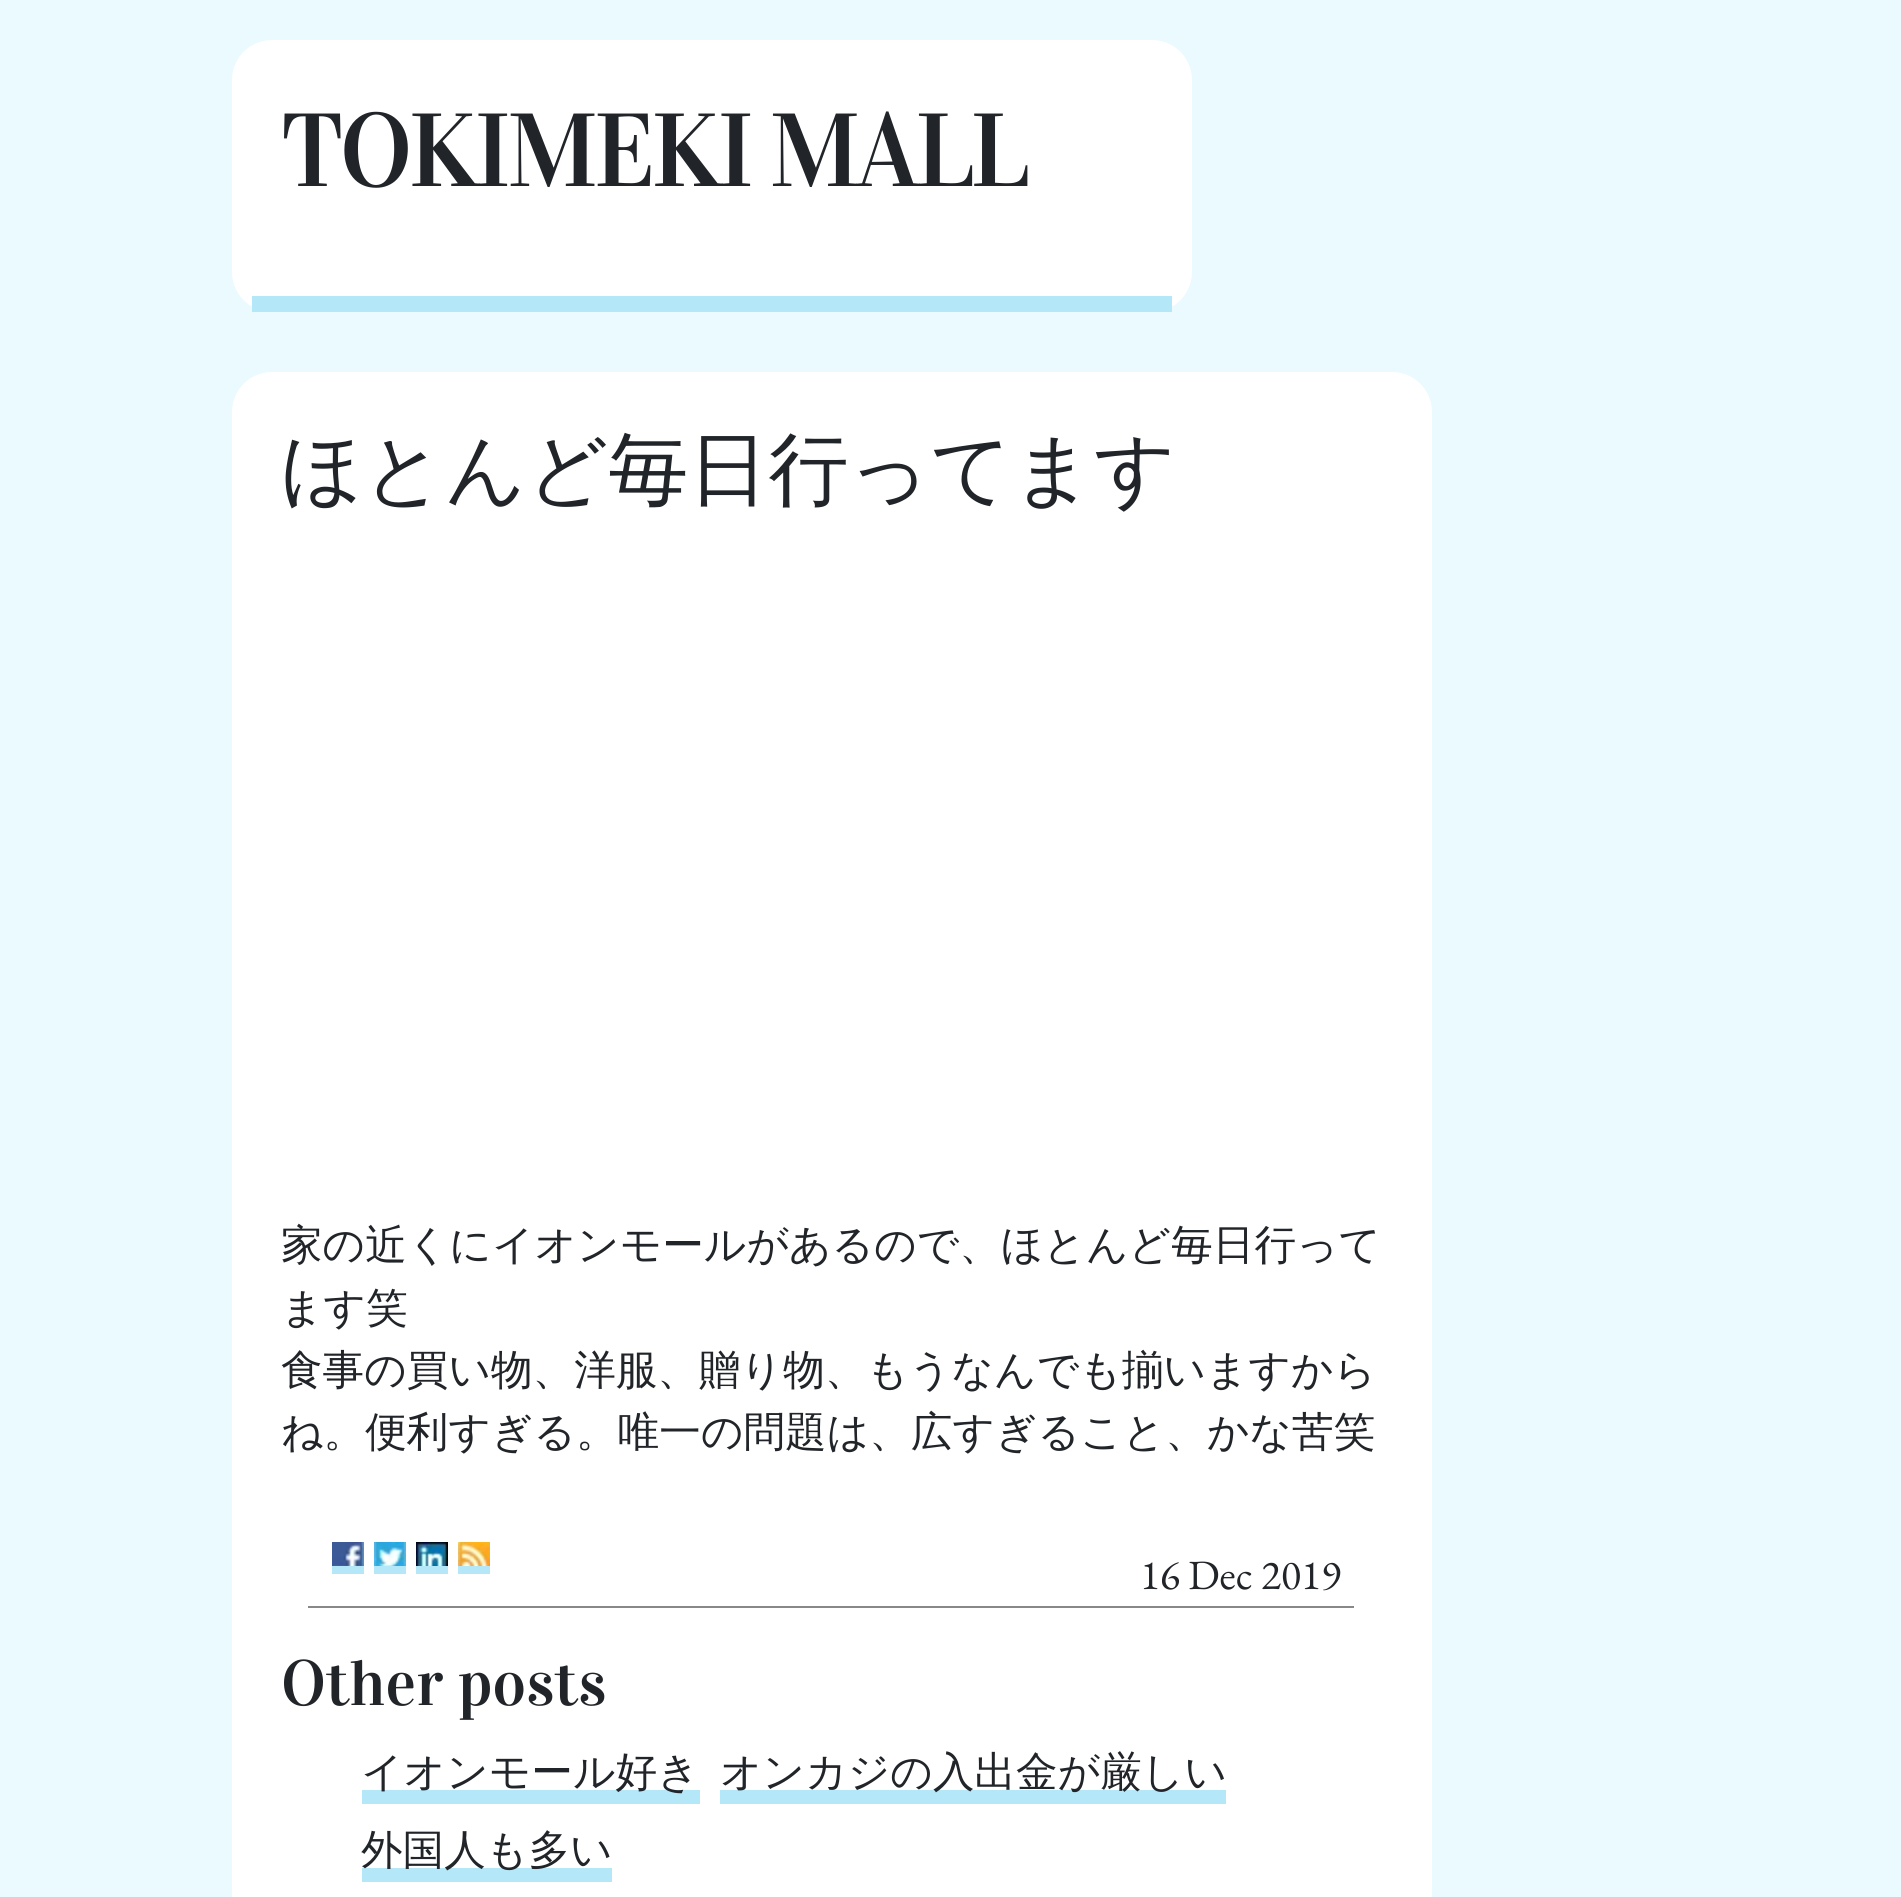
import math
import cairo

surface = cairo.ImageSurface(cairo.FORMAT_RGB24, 1901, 1897)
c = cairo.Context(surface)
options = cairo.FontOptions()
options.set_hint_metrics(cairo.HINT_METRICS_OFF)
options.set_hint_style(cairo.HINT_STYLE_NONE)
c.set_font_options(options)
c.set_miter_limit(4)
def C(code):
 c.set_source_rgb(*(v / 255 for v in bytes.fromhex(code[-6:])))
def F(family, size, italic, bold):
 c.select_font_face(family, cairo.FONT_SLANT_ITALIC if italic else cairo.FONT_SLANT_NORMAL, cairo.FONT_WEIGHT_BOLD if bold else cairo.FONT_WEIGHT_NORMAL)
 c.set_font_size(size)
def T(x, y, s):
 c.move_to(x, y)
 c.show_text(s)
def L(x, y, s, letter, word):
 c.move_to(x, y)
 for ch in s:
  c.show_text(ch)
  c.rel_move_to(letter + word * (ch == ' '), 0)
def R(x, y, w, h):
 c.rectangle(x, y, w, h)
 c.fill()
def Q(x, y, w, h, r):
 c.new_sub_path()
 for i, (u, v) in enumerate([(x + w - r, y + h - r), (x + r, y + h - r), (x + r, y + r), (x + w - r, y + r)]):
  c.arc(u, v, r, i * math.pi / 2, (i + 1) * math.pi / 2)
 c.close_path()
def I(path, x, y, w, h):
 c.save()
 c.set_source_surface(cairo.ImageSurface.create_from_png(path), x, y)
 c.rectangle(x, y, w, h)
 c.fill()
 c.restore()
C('ebfaff')
c.paint()
C('ffffff')
Q(232,40,960,272,40)
c.fill()
C('b4e7f8')
R(252,296,920,16)
F('Vidaloka',104,0,0)
C('212529')
L(281,186,'TOKIMEKI MALL',-4,0)
C('ffffff')
Q(232,372,1200,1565,40)
c.fill()
F('WenQuanYi Zen Hei Medium',80,0,0)
C('212529')
T(281,497,'ほとんど毎日行ってます')
F('WenQuanYi Zen Hei Medium',41.6,0,0)
T(281,1259,'家の近くにイオンモールがあるので、ほとんど毎日行って')
T(281,1322,'ます笑')
T(281,1384,'食事の買い物、洋服、贈り物、もうなんでも揃いますから')
T(281,1446,'ね。便利すぎる。唯一の問題は、広すぎること、かな苦笑')
I('1.png',332,1542,32,24)
C('b4e7f8')
R(332,1566,32,8)
I('2.png',374,1542,32,24)
R(374,1566,32,8)
I('3.png',416,1542,32,24)
R(416,1566,32,8)
I('4.png',458,1542,32,24)
R(458,1566,32,8)
F('EB Garamond',41.6,0,0)
C('212529')
T(1140,1589,'16 Dec 2019')
C('888888')
R(308,1606,1046,2)
F('Vidaloka',64,0,0)
C('212529')
T(281,1705,'Other posts')
C('b4e7f8')
R(362,1790,338,14)
F('WenQuanYi Zen Hei Medium',41.6,0,0)
C('212529')
T(361,1786,'イオンモール好き')
C('b4e7f8')
R(720,1790,506,14)
C('212529')
T(720,1786,'オンカジの入出金が厳しい')
C('b4e7f8')
R(362,1868,250,14)
C('212529')
T(361,1864,'外国人も多い')
surface.write_to_png('o.png')
